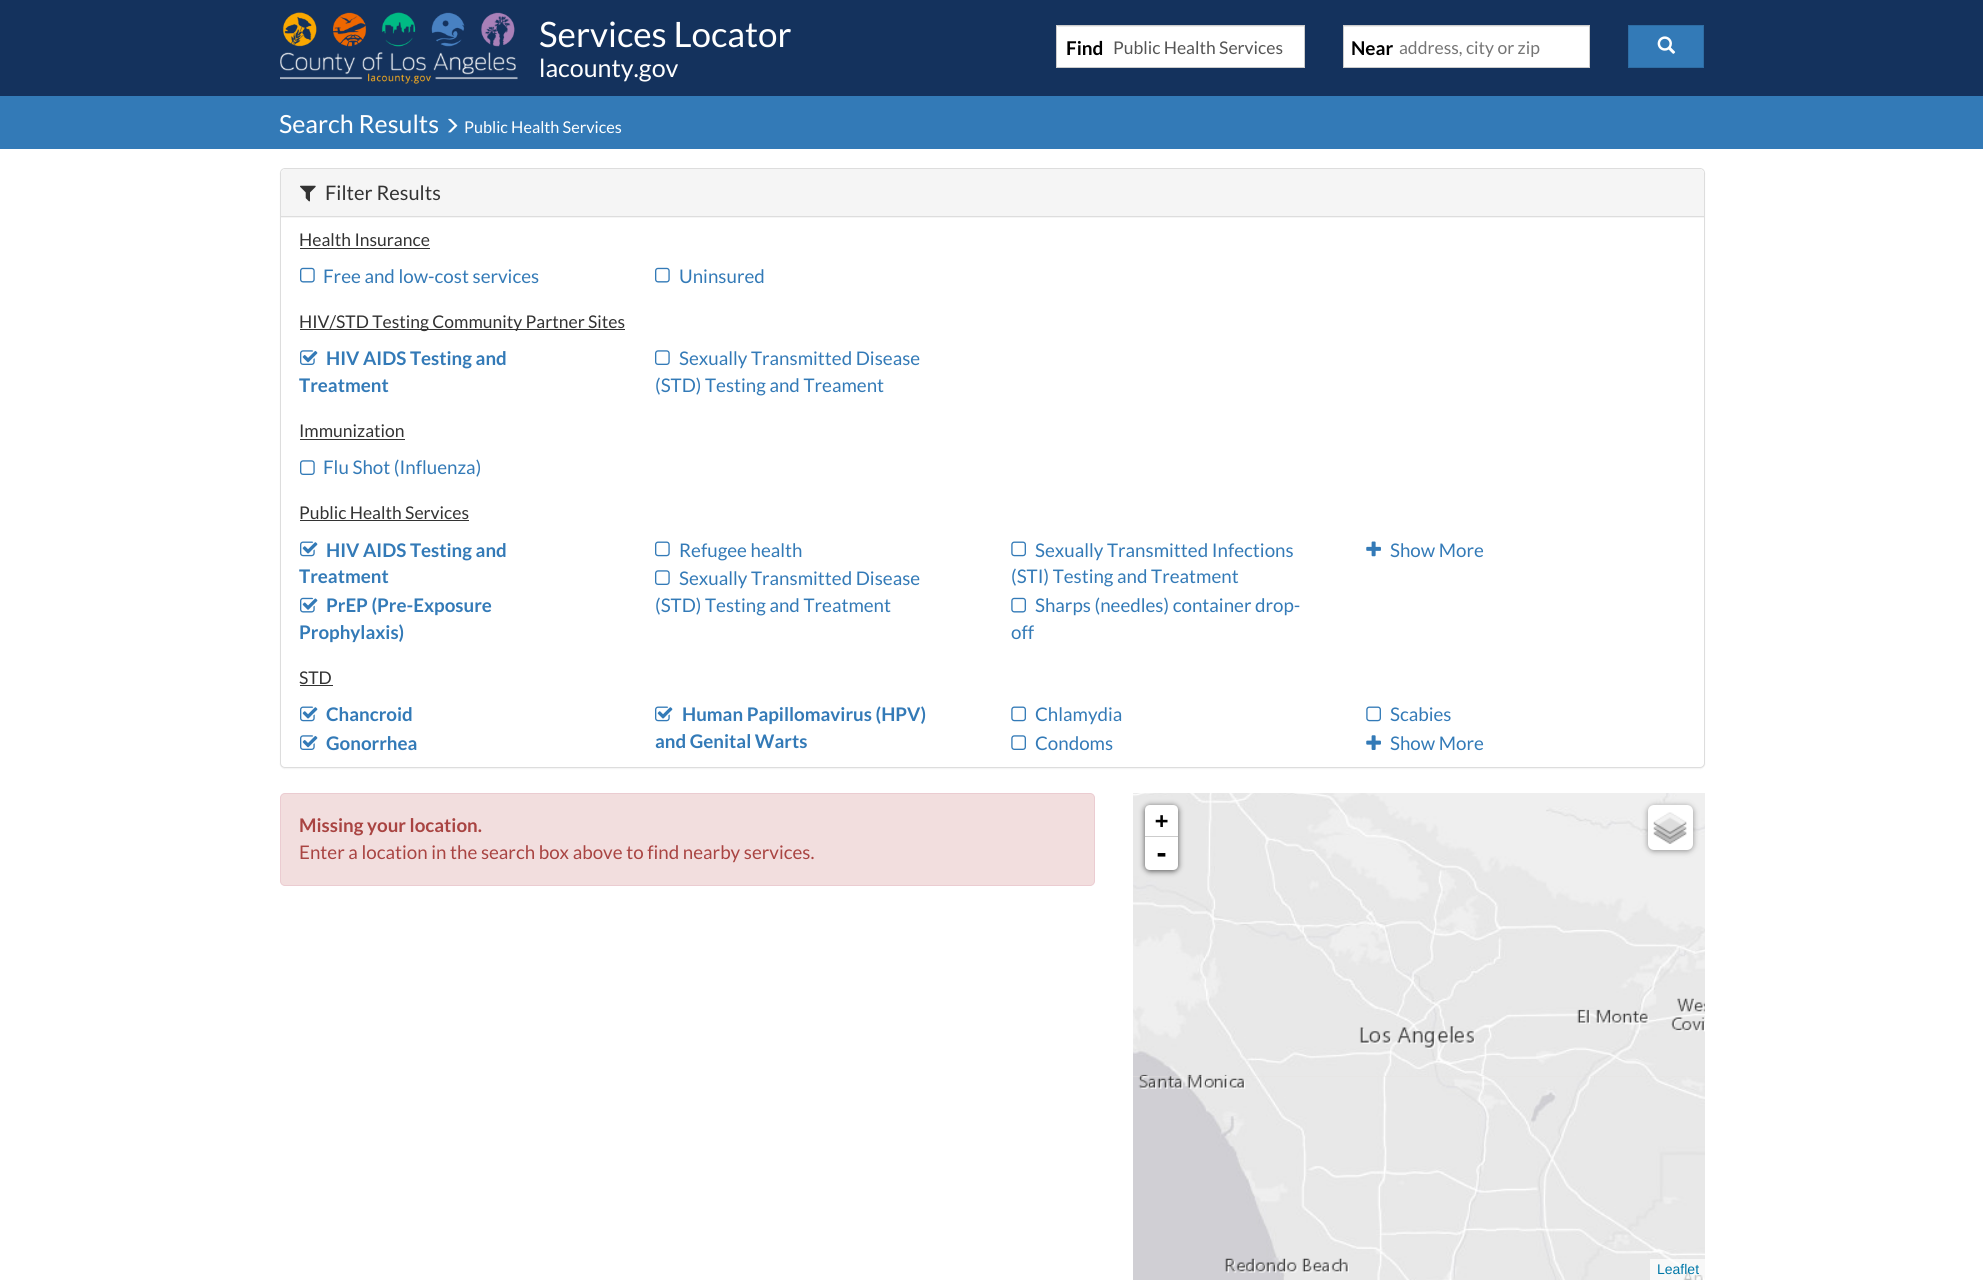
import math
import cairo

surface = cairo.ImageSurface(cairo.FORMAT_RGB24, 1983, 1281)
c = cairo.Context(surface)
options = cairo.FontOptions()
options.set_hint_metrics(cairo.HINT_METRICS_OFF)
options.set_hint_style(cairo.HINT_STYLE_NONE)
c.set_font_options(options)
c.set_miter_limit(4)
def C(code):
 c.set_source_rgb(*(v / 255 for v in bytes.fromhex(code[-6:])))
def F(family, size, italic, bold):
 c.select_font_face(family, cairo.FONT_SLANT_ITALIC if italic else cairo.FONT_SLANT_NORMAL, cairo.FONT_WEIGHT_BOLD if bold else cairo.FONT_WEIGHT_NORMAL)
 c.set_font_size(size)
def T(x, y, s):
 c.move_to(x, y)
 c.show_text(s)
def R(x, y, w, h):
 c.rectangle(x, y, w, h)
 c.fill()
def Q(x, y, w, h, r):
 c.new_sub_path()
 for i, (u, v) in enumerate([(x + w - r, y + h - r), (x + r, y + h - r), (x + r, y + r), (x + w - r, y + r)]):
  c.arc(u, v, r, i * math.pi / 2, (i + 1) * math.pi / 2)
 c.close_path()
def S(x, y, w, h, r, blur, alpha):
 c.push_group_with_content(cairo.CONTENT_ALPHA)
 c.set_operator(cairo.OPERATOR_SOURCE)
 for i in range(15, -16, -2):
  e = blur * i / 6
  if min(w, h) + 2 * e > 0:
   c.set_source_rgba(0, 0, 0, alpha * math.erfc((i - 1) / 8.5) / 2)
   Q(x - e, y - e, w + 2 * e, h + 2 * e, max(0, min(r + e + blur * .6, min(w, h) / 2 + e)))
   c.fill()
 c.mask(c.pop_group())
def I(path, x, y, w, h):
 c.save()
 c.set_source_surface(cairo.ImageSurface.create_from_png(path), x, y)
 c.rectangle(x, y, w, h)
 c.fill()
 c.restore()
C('ffffff')
c.paint()
C('14325d')
R(0,0,1983,96)
I('1.png',280,12,238,72)
F('Lato',35,0,0)
C('ffffff')
T(539,47,'Services Locator')
F('Lato',25,0,0)
T(539,77,'lacounty.gov')
R(1057,26,247,41)
C('ececec')
R(1058,26,246,1)
c.rectangle(1056.5,25.5,248,42)
C('cccccc')
c.set_line_width(1)
c.stroke()
F('Lato',19,0,1)
C('000000')
T(1066,55,'Find')
F('Lato',17.5,0,0)
C('555555')
T(1113,54,'Public Health Services')
C('ffffff')
R(1344,27,245,40)
C('ececec')
R(1344,26,245,1)
c.rectangle(1343.5,25.5,246,42)
C('cccccc')
c.stroke()
F('Lato',19,0,1)
C('000000')
T(1351,55,'Near')
F('Lato',17.5,0,0)
C('757575')
T(1399,54,'address, city or zip')
C('337ab7')
c.rectangle(1628.5,25.5,75,42)
c.fill_preserve()
C('2e6da4')
c.stroke()
I('2.png',1657,36,19,18)
C('337ab7')
R(0,96,1983,53)
F('Lato',25,0,0)
C('ffffff')
T(279,133,'Search Results')
I('3.png',448,118,10,15)
F('Lato',16.25,0,0)
T(464,133,'Public Health Services')
C('000000')
S(280,169,1425,600,5,.5,.05)
C('ffffff')
Q(280.5,168.5,1424,599,4.5)
c.fill_preserve()
C('dddddd')
c.stroke()
C('f5f5f5')
c.new_path()
c.move_to(285,169)
c.line_to(1700,169)
c.curve_to(1702,169,1704,171,1704,173)
c.line_to(1704,218)
c.line_to(281,218)
c.line_to(281,173)
c.curve_to(281,171,283,169,285,169)
c.close_path()
c.fill()
C('dddddd')
R(281,216,1423,1)
I('4.png',300,185,16,17)
F('Lato',20,0,0)
C('333333')
T(325,200,'Filter Results')
F('Lato',17.5,0,0)
T(299,246,'Health Insurance')
R(300,248,130,1)
I('5.png',300,267,15,16)
F('Lato',18.75,0,0)
C('337ab7')
T(323,283,'Free and low-cost services')
I('5.png',655,267,15,16)
T(679,283,'Uninsured')
C('333333')
R(300,329,325,1)
F('Lato',17.5,0,0)
T(299,328,'HIV/STD Testing Community Partner Sites')
I('6.png',300,350,18,15)
F('Lato',18.75,0,1)
C('337ab7')
T(326,365,'HIV AIDS Testing and')
T(299,392,'Treatment')
I('7.png',655,350,15,15)
F('Lato',18.75,0,0)
T(679,365,'Sexually Transmitted Disease')
T(655,392,'(STD) Testing and Treament')
F('Lato',17.5,0,0)
C('333333')
T(299,437,'Immunization')
R(300,439,105,1)
I('7.png',300,460,15,15)
F('Lato',18.75,0,0)
C('337ab7')
T(323,474,'Flu Shot (Influenza)')
F('Lato',17.5,0,0)
C('333333')
T(299,519,'Public Health Services')
R(300,520,169,1)
I('8.png',300,541,18,16)
F('Lato',18.75,0,1)
C('337ab7')
T(326,557,'HIV AIDS Testing and')
T(299,583,'Treatment')
I('9.png',655,541,15,16)
F('Lato',18.75,0,0)
T(679,557,'Refugee health')
I('10.png',1011,541,15,16)
T(1035,557,'Sexually Transmitted Infections')
T(1011,583,'(STI) Testing and Treatment')
I('11.png',1366,541,15,16)
T(1390,557,'Show More')
I('12.png',300,597,18,16)
F('Lato',18.75,0,1)
T(326,612,'PrEP (Pre-Exposure')
T(299,639,'Prophylaxis)')
I('7.png',655,570,15,15)
F('Lato',18.75,0,0)
T(679,585,'Sexually Transmitted Disease')
T(655,612,'(STD) Testing and Treatment')
I('13.png',1011,597,15,16)
T(1035,612,'Sharps (needles) container drop-')
T(1011,639,'off')
F('Lato',17.5,0,0)
C('333333')
T(299,684,'STD')
R(300,685,33,1)
I('8.png',300,706,18,16)
F('Lato',18.75,0,1)
C('337ab7')
T(326,721,'Chancroid')
I('8.png',655,706,18,16)
T(682,721,'Human Papillomavirus (HPV)')
T(655,748,'and Genital Warts')
I('10.png',1011,706,15,16)
F('Lato',18.75,0,0)
T(1035,721,'Chlamydia')
I('10.png',1366,706,15,16)
T(1390,721,'Scabies')
I('6.png',300,735,18,15)
F('Lato',18.75,0,1)
T(326,750,'Gonorrhea')
I('14.png',1011,735,15,15)
F('Lato',18.75,0,0)
T(1035,750,'Condoms')
I('15.png',1366,735,15,15)
T(1390,750,'Show More')
C('f2dede')
Q(280.5,793.5,814,92,4.5)
c.fill_preserve()
C('ebccd1')
c.stroke()
F('Lato',18.75,0,1)
C('a94442')
T(299,832,'Missing your location.')
F('Lato',18.75,0,0)
T(299,859,'Enter a location in the search box above to find nearby services.')
C('e5e3df')
R(1133,1076,572,1)
I('16.png',1133,793,73,283)
I('17.png',1206,793,320,283)
I('18.png',1526,793,179,283)
I('19.png',1133,1076,73,204)
I('20.png',1206,1076,320,204)
I('21.png',1526,1076,179,204)
I('22.png',1577,998,128,34)
I('23.png',1140,1074,62,2)
I('24.png',1224,1026,251,50)
I('25.png',1138,1076,68,13)
I('26.png',1206,1076,143,197)
I('27.png',1683,1271,21,9)
C('000000')
S(1145,806,33,65,5,3,.65)
C('ffffff')
c.new_path()
c.move_to(1150,805)
c.line_to(1173,805)
c.curve_to(1176,805,1178,807,1178,810)
c.line_to(1178,838)
c.line_to(1145,838)
c.line_to(1145,810)
c.curve_to(1145,807,1147,805,1150,805)
c.close_path()
c.fill()
C('cccccc')
R(1145,836,33,1)
F('DejaVu Sans Mono',22,0,1)
C('000000')
T(1155,828,'+')
C('ffffff')
c.new_path()
c.move_to(1145,838)
c.line_to(1178,838)
c.line_to(1178,865)
c.curve_to(1178,868,1176,870,1173,870)
c.line_to(1150,870)
c.curve_to(1147,870,1145,868,1145,865)
c.close_path()
c.fill()
F('DejaVu Sans Mono',25,0,1)
C('000000')
T(1154,862,'-')
C('000000')
S(1648,806,45,45,6,3,.4)
C('ffffff')
Q(1648,805,45,45,6)
c.fill()
I('28.png',1653,812,34,32)
c.set_source_rgba(1,1,1,0.7)
R(1650,1259,55,21)
F('Liberation Sans',14,0,0)
C('0078a8')
T(1657,1274,'Leaflet')
surface.write_to_png('o.png')
